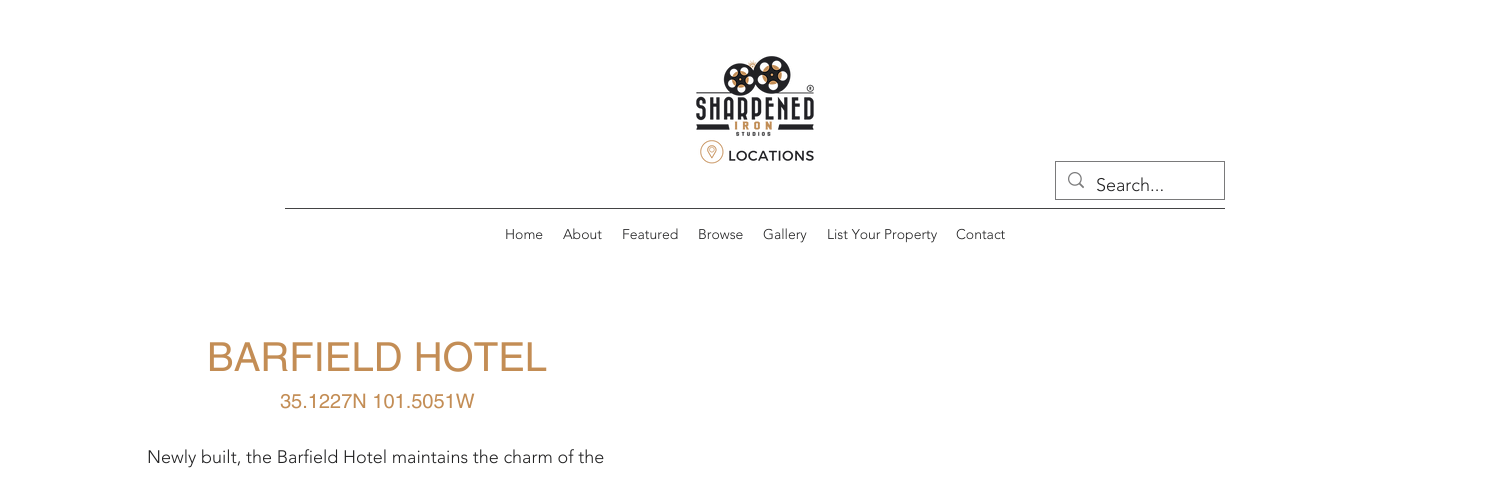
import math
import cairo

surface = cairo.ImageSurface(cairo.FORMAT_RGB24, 1509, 478)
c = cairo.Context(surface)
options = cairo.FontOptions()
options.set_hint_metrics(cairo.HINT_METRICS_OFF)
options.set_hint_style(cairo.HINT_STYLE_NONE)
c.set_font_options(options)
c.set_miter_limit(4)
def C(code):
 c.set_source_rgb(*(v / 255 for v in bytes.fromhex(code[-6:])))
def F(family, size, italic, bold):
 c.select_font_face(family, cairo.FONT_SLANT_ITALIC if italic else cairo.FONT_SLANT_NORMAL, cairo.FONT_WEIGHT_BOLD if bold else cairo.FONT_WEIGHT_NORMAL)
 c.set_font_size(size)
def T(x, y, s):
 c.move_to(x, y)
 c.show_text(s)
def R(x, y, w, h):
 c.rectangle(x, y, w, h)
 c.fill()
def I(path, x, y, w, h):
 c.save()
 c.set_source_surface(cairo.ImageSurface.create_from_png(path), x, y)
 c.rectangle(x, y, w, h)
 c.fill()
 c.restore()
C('ffffff')
c.paint()
I('1.png',696,56,118,108)
c.rectangle(1055.5,161.5,169,38)
C('7a7a7b')
c.set_line_width(1)
c.stroke()
I('2.png',1068,172,16,17)
F('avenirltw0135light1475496 Light',18,0,0)
C('222223')
T(1096,191,'Search...')
C('434344')
R(285,208,940,1)
F('avenirltw0135light1475496 Light',14,0,0)
C('222223')
T(505,239,'Home')
T(563,239,'About')
T(622,239,'Featured')
T(698,239,'Browse')
T(763,239,'Gallery')
T(827,239,'List Your Property')
T(956,239,'Contact')
F('helvetica',40,0,0)
C('c38d55')
T(207,371,'BARFIELD HOTEL')
F('helvetica',20,0,0)
T(280,408,'35.1227N 101.5051W')
F('avenirltw0135light1475496 Light',18,0,0)
C('222223')
T(147,463,'Newly built, the Barfield Hotel maintains the charm of the')
surface.write_to_png('o.png')
